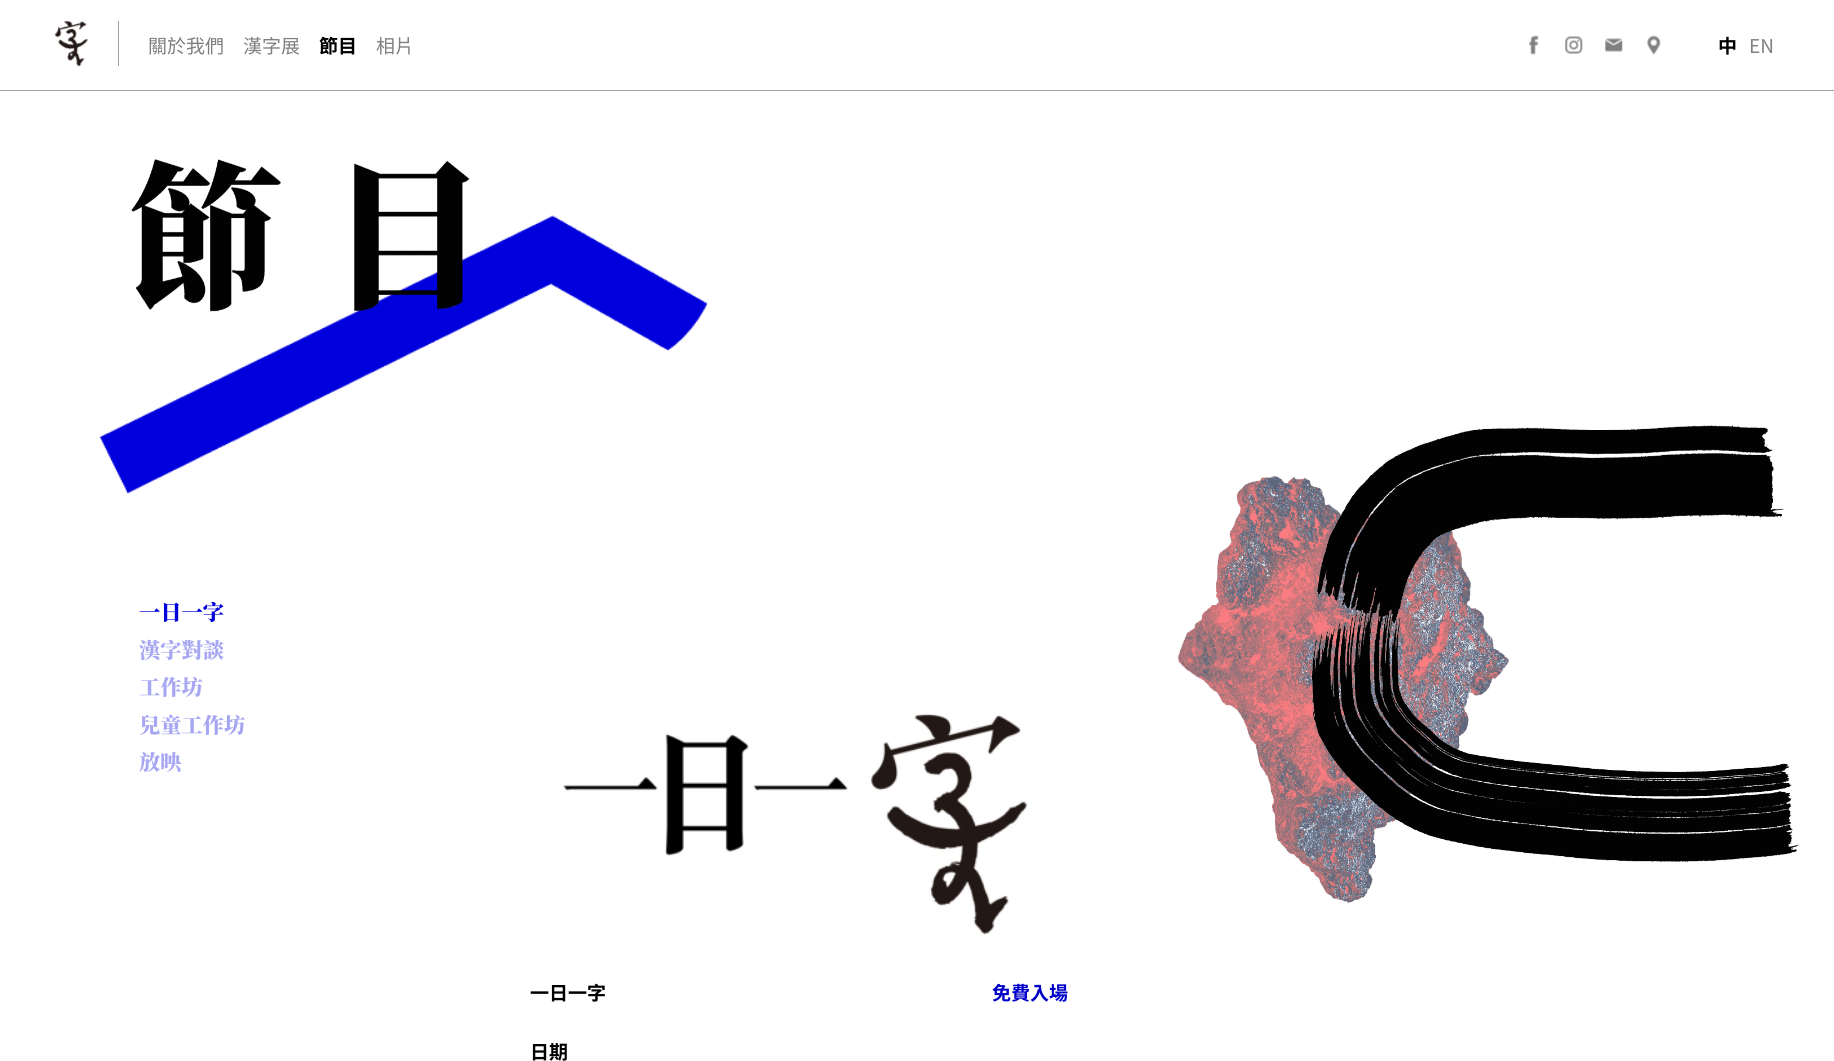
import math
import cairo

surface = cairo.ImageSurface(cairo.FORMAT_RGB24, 1834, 1061)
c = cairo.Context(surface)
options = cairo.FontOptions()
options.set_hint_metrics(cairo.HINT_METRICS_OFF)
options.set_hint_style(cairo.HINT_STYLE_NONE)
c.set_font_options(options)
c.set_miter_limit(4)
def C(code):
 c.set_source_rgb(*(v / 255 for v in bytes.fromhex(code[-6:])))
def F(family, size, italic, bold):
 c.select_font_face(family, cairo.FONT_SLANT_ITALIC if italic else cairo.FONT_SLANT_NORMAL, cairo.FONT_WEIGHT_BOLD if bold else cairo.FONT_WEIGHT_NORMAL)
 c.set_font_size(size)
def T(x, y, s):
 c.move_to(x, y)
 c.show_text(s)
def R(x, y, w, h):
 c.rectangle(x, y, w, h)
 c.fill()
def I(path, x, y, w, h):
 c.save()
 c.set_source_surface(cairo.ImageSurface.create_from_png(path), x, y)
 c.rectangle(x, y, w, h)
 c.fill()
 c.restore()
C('ffffff')
c.paint()
C('a0a0a0')
R(0,90,1834,1)
I('1.png',54,21,35,46)
R(118,21,1,45)
F('Noto Sans TC',19,0,0)
C('808080')
T(148,53,'關於我們')
T(243,53,'漢字展')
F('Noto Sans TC',19,0,1)
C('000000')
T(319,53,'節目')
F('Noto Sans TC',19,0,0)
C('808080')
T(376,53,'相片')
I('2.png',1529,35,10,20)
I('3.png',1565,36,18,18)
I('4.png',1605,38,18,14)
I('5.png',1647,35,14,20)
F('Noto Sans TC',19,0,1)
C('000000')
T(1718,53,'中')
F('Noto Sans TC',19,0,0)
C('808080')
T(1749,53,'EN')
I('7.png',99,215,609,279)
I('8.png',1177,476,333,428)
I('6.png',131,159,1668,703)
F('Noto Serif CJK TC',21.25,0,0)
C('0000dc')
T(139,620,'一日一字')
C('a6a6f3')
T(139,658,'漢字對談')
T(139,695,'工作坊')
T(139,733,'兒童工作坊')
T(139,770,'放映')
I('9.png',563,713,465,222)
F('Noto Sans TC',19,0,1)
C('000000')
T(530,1000,'一日一字')
C('0000c8')
T(992,1000,'免費入場')
C('000000')
T(530,1059,'日期')
surface.write_to_png('o.png')
